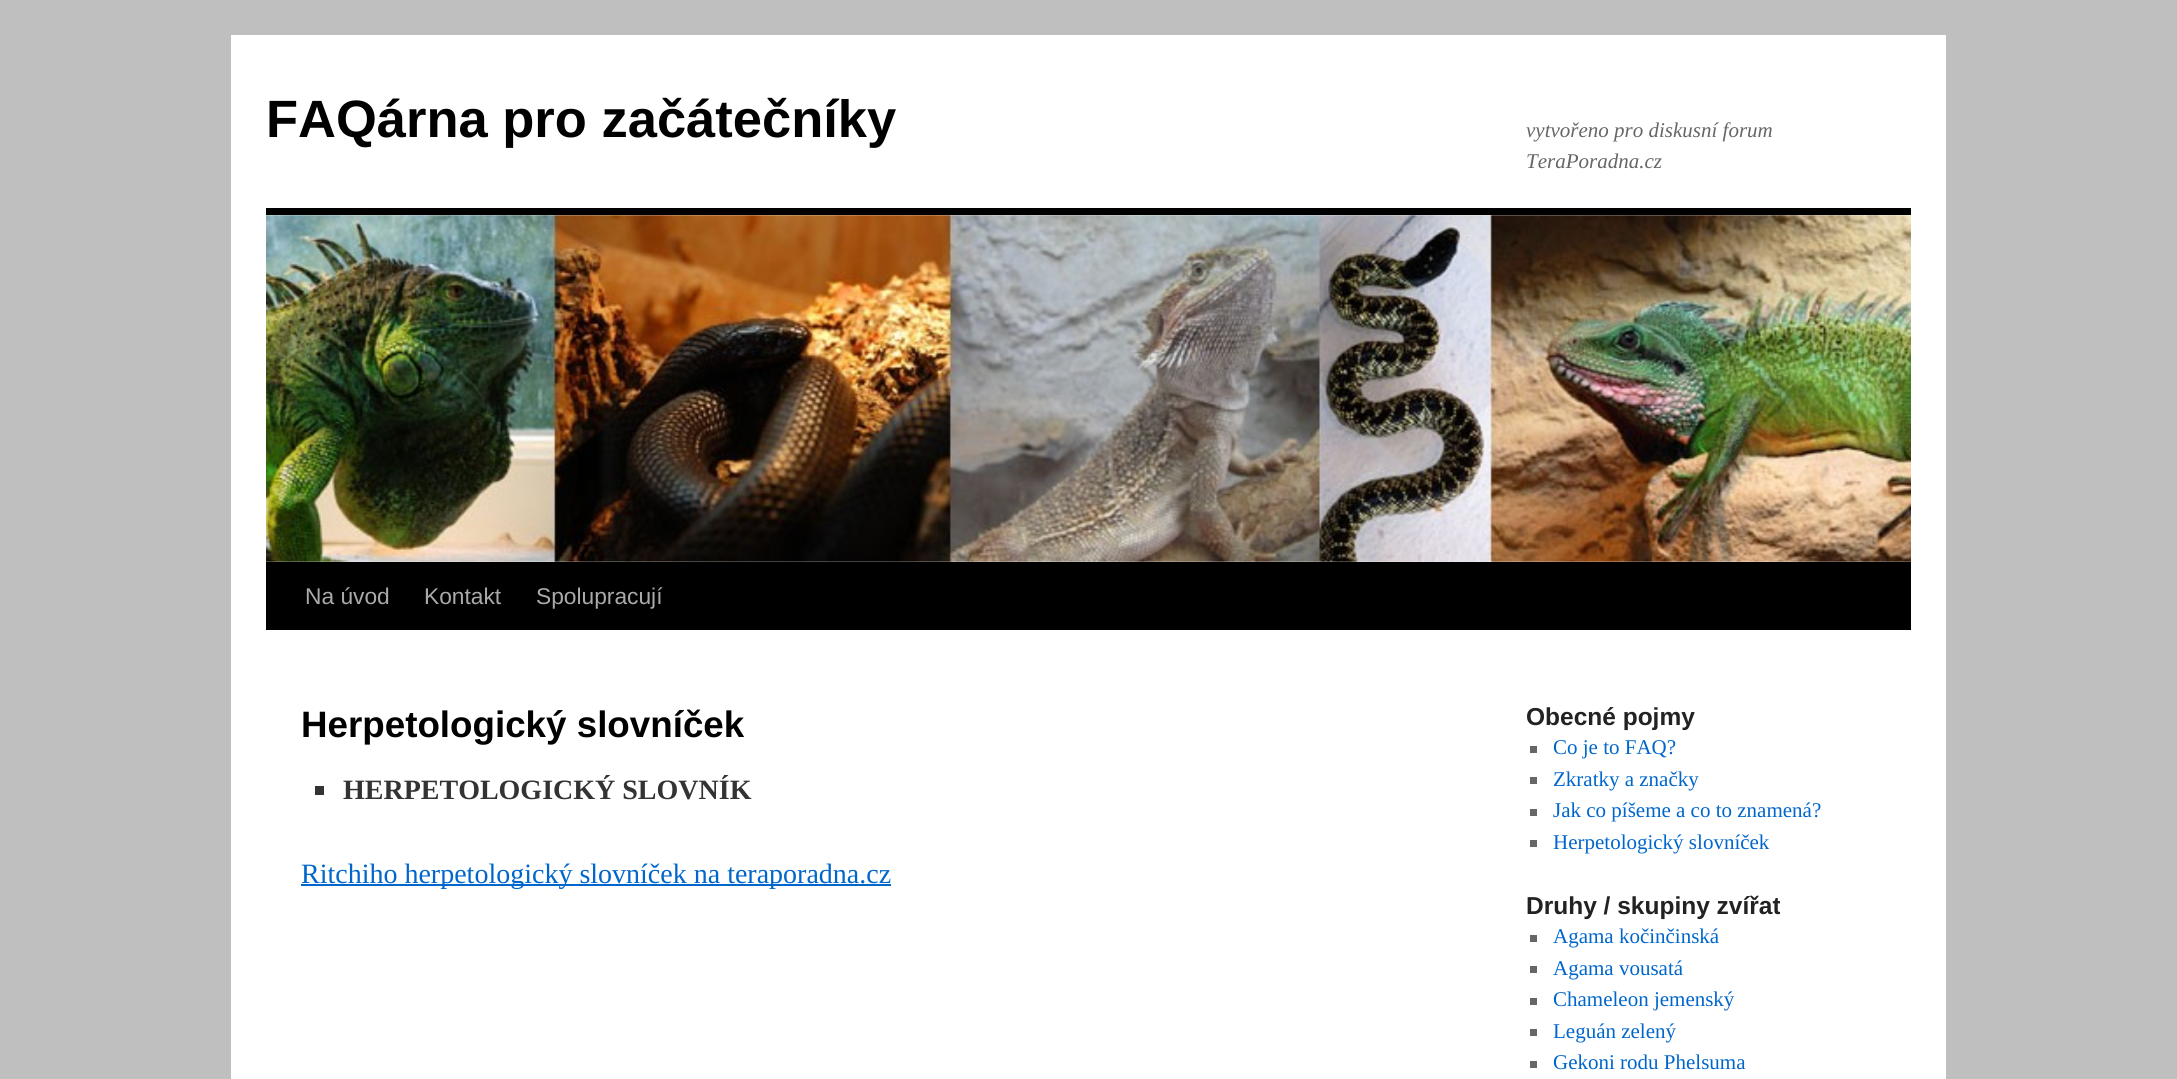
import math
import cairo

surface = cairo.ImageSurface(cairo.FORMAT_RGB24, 2177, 1079)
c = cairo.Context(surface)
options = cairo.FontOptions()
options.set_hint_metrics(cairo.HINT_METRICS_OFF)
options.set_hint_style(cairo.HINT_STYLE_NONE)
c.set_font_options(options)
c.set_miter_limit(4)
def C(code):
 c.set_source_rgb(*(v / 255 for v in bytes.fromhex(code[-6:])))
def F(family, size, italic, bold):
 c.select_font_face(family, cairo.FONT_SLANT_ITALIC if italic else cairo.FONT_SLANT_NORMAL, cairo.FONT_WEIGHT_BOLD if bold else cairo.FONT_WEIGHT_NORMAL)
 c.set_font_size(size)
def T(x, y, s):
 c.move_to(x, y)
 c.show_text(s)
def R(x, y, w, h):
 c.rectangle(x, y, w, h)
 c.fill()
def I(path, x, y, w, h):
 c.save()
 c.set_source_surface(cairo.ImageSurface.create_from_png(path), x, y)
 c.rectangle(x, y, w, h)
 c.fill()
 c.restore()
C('bfbfbf')
c.paint()
C('ffffff')
R(231,35,1715,1044)
F('Liberation Sans',52.5,0,1)
C('000000')
T(266,137,'FAQárna pro začátečníky')
F('Liberation Serif',21,1,0)
C('666666')
T(1526,137,'vytvořeno pro diskusní forum')
T(1526,168,'TeraPoradna.cz')
C('000000')
R(266,208,1645,7)
R(266,562,1645,68)
I('1.png',266,215,1645,347)
F('Liberation Sans',22.75,0,0)
C('aaaaaa')
T(305,604,'Na úvod')
T(424,604,'Kontakt')
T(536,604,'Spolupracují')
F('Liberation Sans',36.75,0,1)
C('000000')
T(301,737,'Herpetologický slovníček')
C('333333')
R(315,786,9,9)
F('Liberation Serif',28,0,1)
T(343,799,'HERPETOLOGICKÝ SLOVNÍK')
C('0066cc')
R(301,884,590,2)
F('Liberation Serif',28,0,0)
T(301,883,'Ritchiho herpetologický slovníček na teraporadna.cz')
F('Liberation Sans',24.5,0,1)
C('222222')
T(1526,725,'Obecné pojmy')
C('666666')
R(1530,746,7,7)
F('Liberation Serif',21,0,0)
C('0066cc')
T(1553,754,'Co je to FAQ?')
C('666666')
R(1530,777,7,7)
C('0066cc')
T(1553,786,'Zkratky a značky')
C('666666')
R(1530,809,7,7)
C('0066cc')
T(1553,817,'Jak co píšeme a co to znamená?')
C('666666')
R(1530,840,7,7)
C('0066cc')
T(1553,849,'Herpetologický slovníček')
F('Liberation Sans',24.5,0,1)
C('222222')
T(1526,914,'Druhy / skupiny zvířat')
C('666666')
R(1530,935,7,7)
F('Liberation Serif',21,0,0)
C('0066cc')
T(1553,943,'Agama kočinčinská')
C('666666')
R(1530,966,7,7)
C('0066cc')
T(1553,975,'Agama vousatá')
C('666666')
R(1530,998,7,7)
C('0066cc')
T(1553,1006,'Chameleon jemenský')
C('666666')
R(1530,1029,7,7)
C('0066cc')
T(1553,1038,'Leguán zelený')
C('666666')
R(1530,1061,7,7)
C('0066cc')
T(1553,1069,'Gekoni rodu Phelsuma')
surface.write_to_png('o.png')
